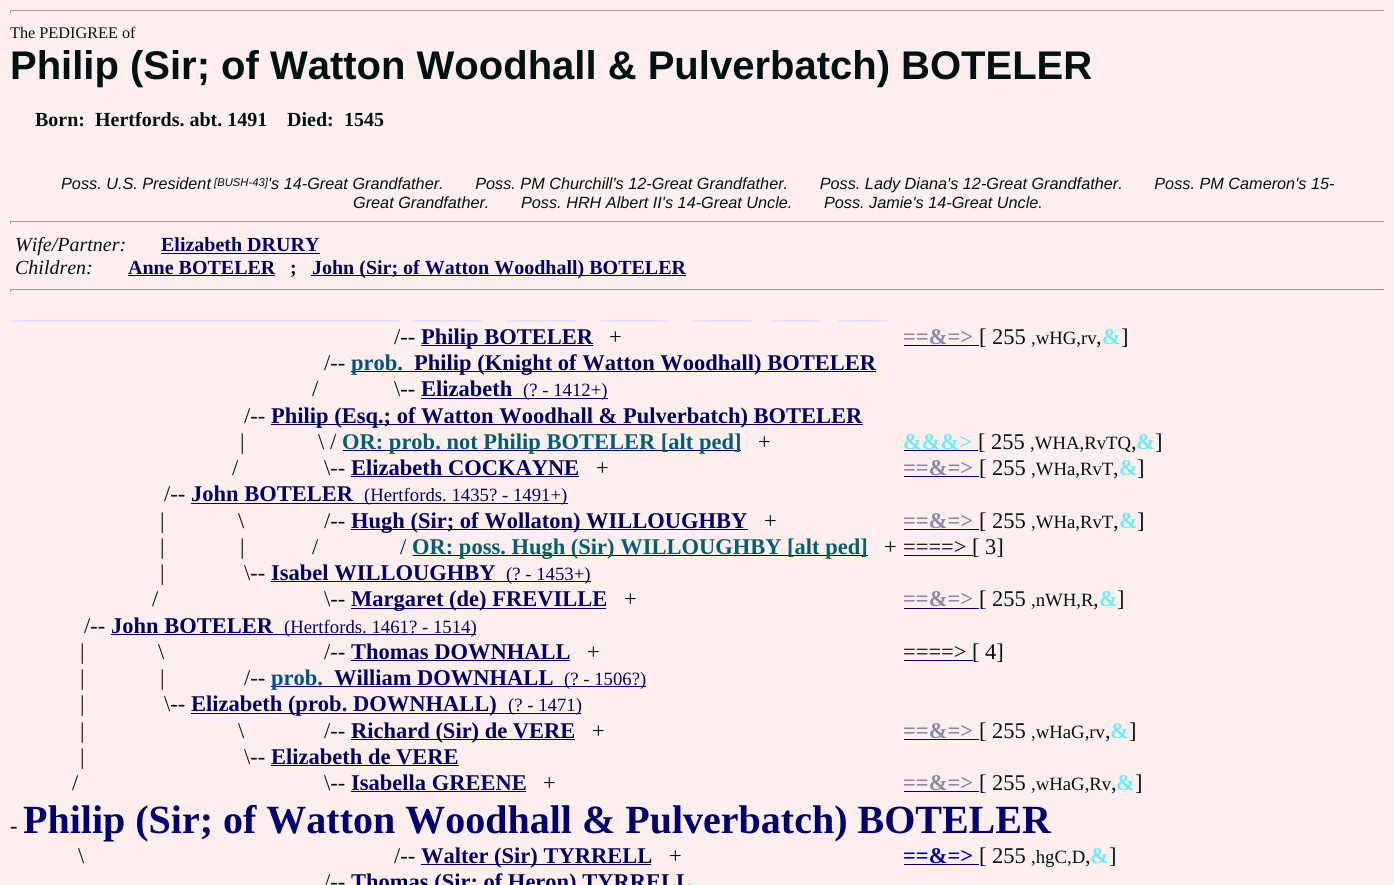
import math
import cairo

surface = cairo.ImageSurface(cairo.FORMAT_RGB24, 1394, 885)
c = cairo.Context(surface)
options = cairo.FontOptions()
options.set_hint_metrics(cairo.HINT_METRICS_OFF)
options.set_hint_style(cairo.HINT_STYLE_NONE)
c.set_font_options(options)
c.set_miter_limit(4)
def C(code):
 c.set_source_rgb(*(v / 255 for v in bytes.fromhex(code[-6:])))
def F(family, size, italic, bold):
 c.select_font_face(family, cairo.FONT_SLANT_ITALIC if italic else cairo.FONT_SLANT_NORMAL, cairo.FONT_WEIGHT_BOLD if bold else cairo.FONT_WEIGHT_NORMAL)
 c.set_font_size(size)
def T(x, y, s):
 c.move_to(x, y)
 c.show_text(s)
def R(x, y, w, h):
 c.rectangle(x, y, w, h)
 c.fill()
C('ffeeee')
c.paint()
C('9f9f9f')
R(10,10,1375,1)
C('eeeeee')
R(1384,10,1,3)
R(10,11,1375,1)
C('9f9f9f')
R(10,10,1,3)
F('Liberation Serif',16.25,0,0)
C('001111')
T(10,38,'The PEDIGREE of')
F('Liberation Sans',40,0,1)
T(10,79,'Philip (Sir; of Watton Woodhall & Pulverbatch) BOTELER')
F('Liberation Serif',20,0,1)
T(35,126,'Born:')
T(95,126,'Hertfords. abt. 1491')
T(287,126,'Died:')
T(344,126,'1545')
F('Liberation Sans',16.25,1,0)
T(61,189,'Poss. U.S. President')
F('Liberation Sans',11.25,1,0)
T(214,186,'[BUSH-43]')
F('Liberation Sans',16.25,1,0)
T(268,189,'\'s 14-Great Grandfather.       Poss. PM Churchill\'s 12-Great Grandfather.       Poss. Lady Diana\'s 12-Great Grandfather.       Poss. PM Cameron\'s 15-')
T(353,208,'Great Grandfather.       Poss. HRH Albert II\'s 14-Great Uncle.       Poss. Jamie\'s 14-Great Uncle.')
C('9f9f9f')
R(10,221,1375,1)
C('eeeeee')
R(1384,221,1,3)
R(10,223,1375,1)
C('9f9f9f')
R(10,221,1,3)
F('Liberation Serif',20,1,0)
C('001111')
T(15,251,'Wife/Partner:')
F('Liberation Serif',20,0,1)
C('000066')
T(161,251,'Elizabeth DRURY')
R(161,253,159,1)
F('Liberation Serif',20,1,0)
C('001111')
T(15,274,'Children:')
F('Liberation Serif',20,0,1)
C('000066')
T(128,274,'Anne BOTELER')
R(128,275,147,1)
C('001111')
T(290,274,';')
C('000066')
R(311,275,375,1)
T(312,274,'John (Sir; of Watton Woodhall) BOTELER')
C('9f9f9f')
R(10,289,1375,1)
C('eeeeee')
R(1384,289,1,3)
R(10,290,1375,1)
C('9f9f9f')
R(10,289,1,3)
C('ddddff')
T(10,319,'_______________________________________')
T(412,319,'_______')
T(506,319,'_______')
T(600,319,'_______')
T(692,319,'______')
T(771,319,'_____')
T(838,319,'_____')
F('Liberation Serif',22.5,0,0)
C('001111')
T(394,344,'/--')
C('000066')
R(421,345,172,1)
F('Liberation Serif',22.5,0,1)
T(421,344,'Philip BOTELER')
F('Liberation Serif',22.5,0,0)
C('001111')
T(609,344,'+')
F('Liberation Serif',22.5,0,1)
C('8888ac')
T(903,344,'==&=>')
C('000066')
R(904,345,75,1)
F('Liberation Serif',22.5,0,0)
C('001111')
T(979,344,'[ 255')
F('Liberation Serif',18.75,0,0)
T(1031,344,',wHG,rv')
F('Liberation Serif',22.5,0,0)
T(1096,344,',')
F('Liberation Serif',22.5,0,1)
C('68ecfc')
T(1102,344,'&')
F('Liberation Serif',22.5,0,0)
C('001111')
T(1121,344,']')
T(324,370,'/--')
C('000066')
R(351,371,525,1)
F('Liberation Serif',22.5,0,1)
C('005088')
T(351,370,'prob.')
C('000066')
T(414,370,'Philip (Knight of Watton Woodhall) BOTELER')
F('Liberation Serif',22.5,0,0)
C('001111')
T(312,396,'/')
T(394,396,'\\--')
F('Liberation Serif',22.5,0,1)
C('000066')
T(421,396,'Elizabeth')
R(421,398,187,1)
F('Liberation Serif',18.75,0,0)
T(523,396,'(? - 1412+)')
F('Liberation Serif',22.5,0,0)
C('001111')
T(244,423,'/--')
C('000066')
R(271,424,592,1)
F('Liberation Serif',22.5,0,1)
T(271,423,'Philip (Esq.; of Watton Woodhall & Pulverbatch) BOTELER')
F('Liberation Serif',22.5,0,0)
C('001111')
T(240,449,'|')
T(318,449,'\\ /')
C('000066')
R(343,450,398,1)
F('Liberation Serif',22.5,0,1)
C('006070')
T(342,449,'OR: prob. not Philip BOTELER [alt ped]')
F('Liberation Serif',22.5,0,0)
C('001111')
T(758,449,'+')
F('Liberation Serif',22.5,0,1)
C('68ecfc')
T(903,449,'&&&>')
C('000066')
R(904,450,74,1)
F('Liberation Serif',22.5,0,0)
C('001111')
T(978,449,'[ 255')
F('Liberation Serif',18.75,0,0)
T(1030,449,',WHA,RvTQ')
F('Liberation Serif',22.5,0,0)
T(1131,449,',')
F('Liberation Serif',22.5,0,1)
C('68ecfc')
T(1136,449,'&')
F('Liberation Serif',22.5,0,0)
C('001111')
T(1155,449,']')
T(232,475,'/')
T(324,475,'\\--')
F('Liberation Serif',22.5,0,1)
C('000066')
T(351,475,'Elizabeth COCKAYNE')
R(351,476,228,1)
F('Liberation Serif',22.5,0,0)
C('001111')
T(596,475,'+')
F('Liberation Serif',22.5,0,1)
C('8888ac')
T(903,475,'==&=>')
C('000066')
R(904,476,75,1)
F('Liberation Serif',22.5,0,0)
C('001111')
T(979,475,'[ 255')
F('Liberation Serif',18.75,0,0)
T(1031,475,',WHa,RvT')
F('Liberation Serif',22.5,0,0)
T(1113,475,',')
F('Liberation Serif',22.5,0,1)
C('68ecfc')
T(1119,475,'&')
F('Liberation Serif',22.5,0,0)
C('001111')
T(1137,475,']')
T(164,501,'/--')
F('Liberation Serif',22.5,0,1)
C('000066')
T(191,501,'John BOTELER')
R(191,503,377,1)
F('Liberation Serif',18.75,0,0)
T(364,501,'(Hertfords. 1435? - 1491+)')
F('Liberation Serif',22.5,0,0)
C('001111')
T(160,528,'|')
T(238,528,'\\')
T(324,528,'/--')
C('000066')
R(351,529,397,1)
F('Liberation Serif',22.5,0,1)
T(351,528,'Hugh (Sir; of Wollaton) WILLOUGHBY')
F('Liberation Serif',22.5,0,0)
C('001111')
T(764,528,'+')
F('Liberation Serif',22.5,0,1)
C('8888ac')
T(903,528,'==&=>')
C('000066')
R(904,529,75,1)
F('Liberation Serif',22.5,0,0)
C('001111')
T(979,528,'[ 255')
F('Liberation Serif',18.75,0,0)
T(1031,528,',WHa,RvT')
F('Liberation Serif',22.5,0,0)
T(1113,528,',')
F('Liberation Serif',22.5,0,1)
C('68ecfc')
T(1119,528,'&')
F('Liberation Serif',22.5,0,0)
C('001111')
T(1137,528,']')
T(160,554,'|')
T(240,554,'|')
T(312,554,'/')
T(400,554,'/')
C('000066')
R(413,555,455,1)
F('Liberation Serif',22.5,0,1)
C('006070')
T(412,554,'OR: poss. Hugh (Sir) WILLOUGHBY [alt ped]')
F('Liberation Serif',22.5,0,0)
C('001111')
T(884,554,'+')
C('000000')
T(903,554,'====>')
C('000066')
R(904,555,69,1)
C('001111')
T(972,554,'[ 3]')
T(160,580,'|')
T(244,580,'\\--')
F('Liberation Serif',22.5,0,1)
C('000066')
T(271,580,'Isabel WILLOUGHBY')
R(271,581,320,1)
F('Liberation Serif',18.75,0,0)
T(506,580,'(? - 1453+)')
F('Liberation Serif',22.5,0,0)
C('001111')
T(152,606,'/')
T(324,606,'\\--')
C('000066')
R(351,608,255,1)
F('Liberation Serif',22.5,0,1)
T(351,606,'Margaret (de) FREVILLE')
F('Liberation Serif',22.5,0,0)
C('001111')
T(624,606,'+')
F('Liberation Serif',22.5,0,1)
C('8888ac')
T(903,606,'==&=>')
C('000066')
R(904,608,75,1)
F('Liberation Serif',22.5,0,0)
C('001111')
T(979,606,'[ 255')
F('Liberation Serif',18.75,0,0)
T(1031,606,',nWH,R')
F('Liberation Serif',22.5,0,0)
T(1093,606,',')
F('Liberation Serif',22.5,0,1)
C('68ecfc')
T(1099,606,'&')
F('Liberation Serif',22.5,0,0)
C('001111')
T(1117,606,']')
T(84,633,'/--')
F('Liberation Serif',22.5,0,1)
C('000066')
T(111,633,'John BOTELER')
R(111,634,365,1)
F('Liberation Serif',18.75,0,0)
T(284,633,'(Hertfords. 1461? - 1514)')
F('Liberation Serif',22.5,0,0)
C('001111')
T(80,659,'|')
T(158,659,'\\')
T(324,659,'/--')
F('Liberation Serif',22.5,0,1)
C('000066')
T(351,659,'Thomas DOWNHALL')
R(351,660,219,1)
F('Liberation Serif',22.5,0,0)
C('001111')
T(587,659,'+')
C('000000')
T(903,659,'====>')
C('000066')
R(904,660,69,1)
C('001111')
T(972,659,'[ 4]')
T(80,685,'|')
T(160,685,'|')
T(244,685,'/--')
C('000066')
R(271,686,375,1)
F('Liberation Serif',22.5,0,1)
C('005088')
T(271,685,'prob.')
C('000066')
T(334,685,'William DOWNHALL')
F('Liberation Serif',18.75,0,0)
T(564,685,'(? - 1506?)')
F('Liberation Serif',22.5,0,0)
C('001111')
T(80,711,'|')
T(164,711,'\\--')
C('000066')
R(191,713,390,1)
F('Liberation Serif',22.5,0,1)
T(191,711,'Elizabeth (prob. DOWNHALL)')
F('Liberation Serif',18.75,0,0)
T(508,711,'(? - 1471)')
F('Liberation Serif',22.5,0,0)
C('001111')
T(80,738,'|')
T(238,738,'\\')
T(324,738,'/--')
C('000066')
R(351,739,224,1)
F('Liberation Serif',22.5,0,1)
T(351,738,'Richard (Sir) de VERE')
F('Liberation Serif',22.5,0,0)
C('001111')
T(592,738,'+')
F('Liberation Serif',22.5,0,1)
C('8888ac')
T(903,738,'==&=>')
C('000066')
R(904,739,75,1)
F('Liberation Serif',22.5,0,0)
C('001111')
T(979,738,'[ 255')
F('Liberation Serif',18.75,0,0)
T(1031,738,',wHaG,rv')
F('Liberation Serif',22.5,0,0)
T(1105,738,',')
F('Liberation Serif',22.5,0,1)
C('68ecfc')
T(1110,738,'&')
F('Liberation Serif',22.5,0,0)
C('001111')
T(1129,738,']')
T(80,764,'|')
T(244,764,'\\--')
F('Liberation Serif',22.5,0,1)
C('000066')
T(271,764,'Elizabeth de VERE')
R(271,765,188,1)
F('Liberation Serif',22.5,0,0)
C('001111')
T(72,790,'/')
T(324,790,'\\--')
F('Liberation Serif',22.5,0,1)
C('000066')
T(351,790,'Isabella GREENE')
R(351,791,175,1)
F('Liberation Serif',22.5,0,0)
C('001111')
T(543,790,'+')
F('Liberation Serif',22.5,0,1)
C('8888ac')
T(903,790,'==&=>')
C('000066')
R(904,791,75,1)
F('Liberation Serif',22.5,0,0)
C('001111')
T(979,790,'[ 255')
F('Liberation Serif',18.75,0,0)
T(1031,790,',wHaG,Rv')
F('Liberation Serif',22.5,0,0)
T(1111,790,',')
F('Liberation Serif',22.5,0,1)
C('68ecfc')
T(1116,790,'&')
F('Liberation Serif',22.5,0,0)
C('001111')
T(1135,790,']')
T(10,833,'-')
F('Liberation Serif',40,0,1)
C('000070')
T(23,833,'Philip (Sir; of Watton Woodhall & Pulverbatch) BOTELER')
F('Liberation Serif',22.5,0,0)
C('001111')
T(78,863,'\\')
T(394,863,'/--')
C('000066')
R(421,864,230,1)
F('Liberation Serif',22.5,0,1)
T(421,863,'Walter (Sir) TYRRELL')
F('Liberation Serif',22.5,0,0)
C('001111')
T(669,863,'+')
F('Liberation Serif',22.5,0,1)
C('0000ac')
T(903,863,'==&=>')
C('000066')
R(904,864,75,1)
F('Liberation Serif',22.5,0,0)
C('001111')
T(979,863,'[ 255')
F('Liberation Serif',18.75,0,0)
T(1031,863,',hgC,D')
F('Liberation Serif',22.5,0,0)
T(1085,863,',')
F('Liberation Serif',22.5,0,1)
C('68ecfc')
T(1090,863,'&')
F('Liberation Serif',22.5,0,0)
C('001111')
T(1109,863,']')
T(324,889,'/--')
F('Liberation Serif',22.5,0,1)
C('000066')
T(351,889,'Thomas (Sir; of Heron) TYRRELL')
surface.write_to_png('o.png')
